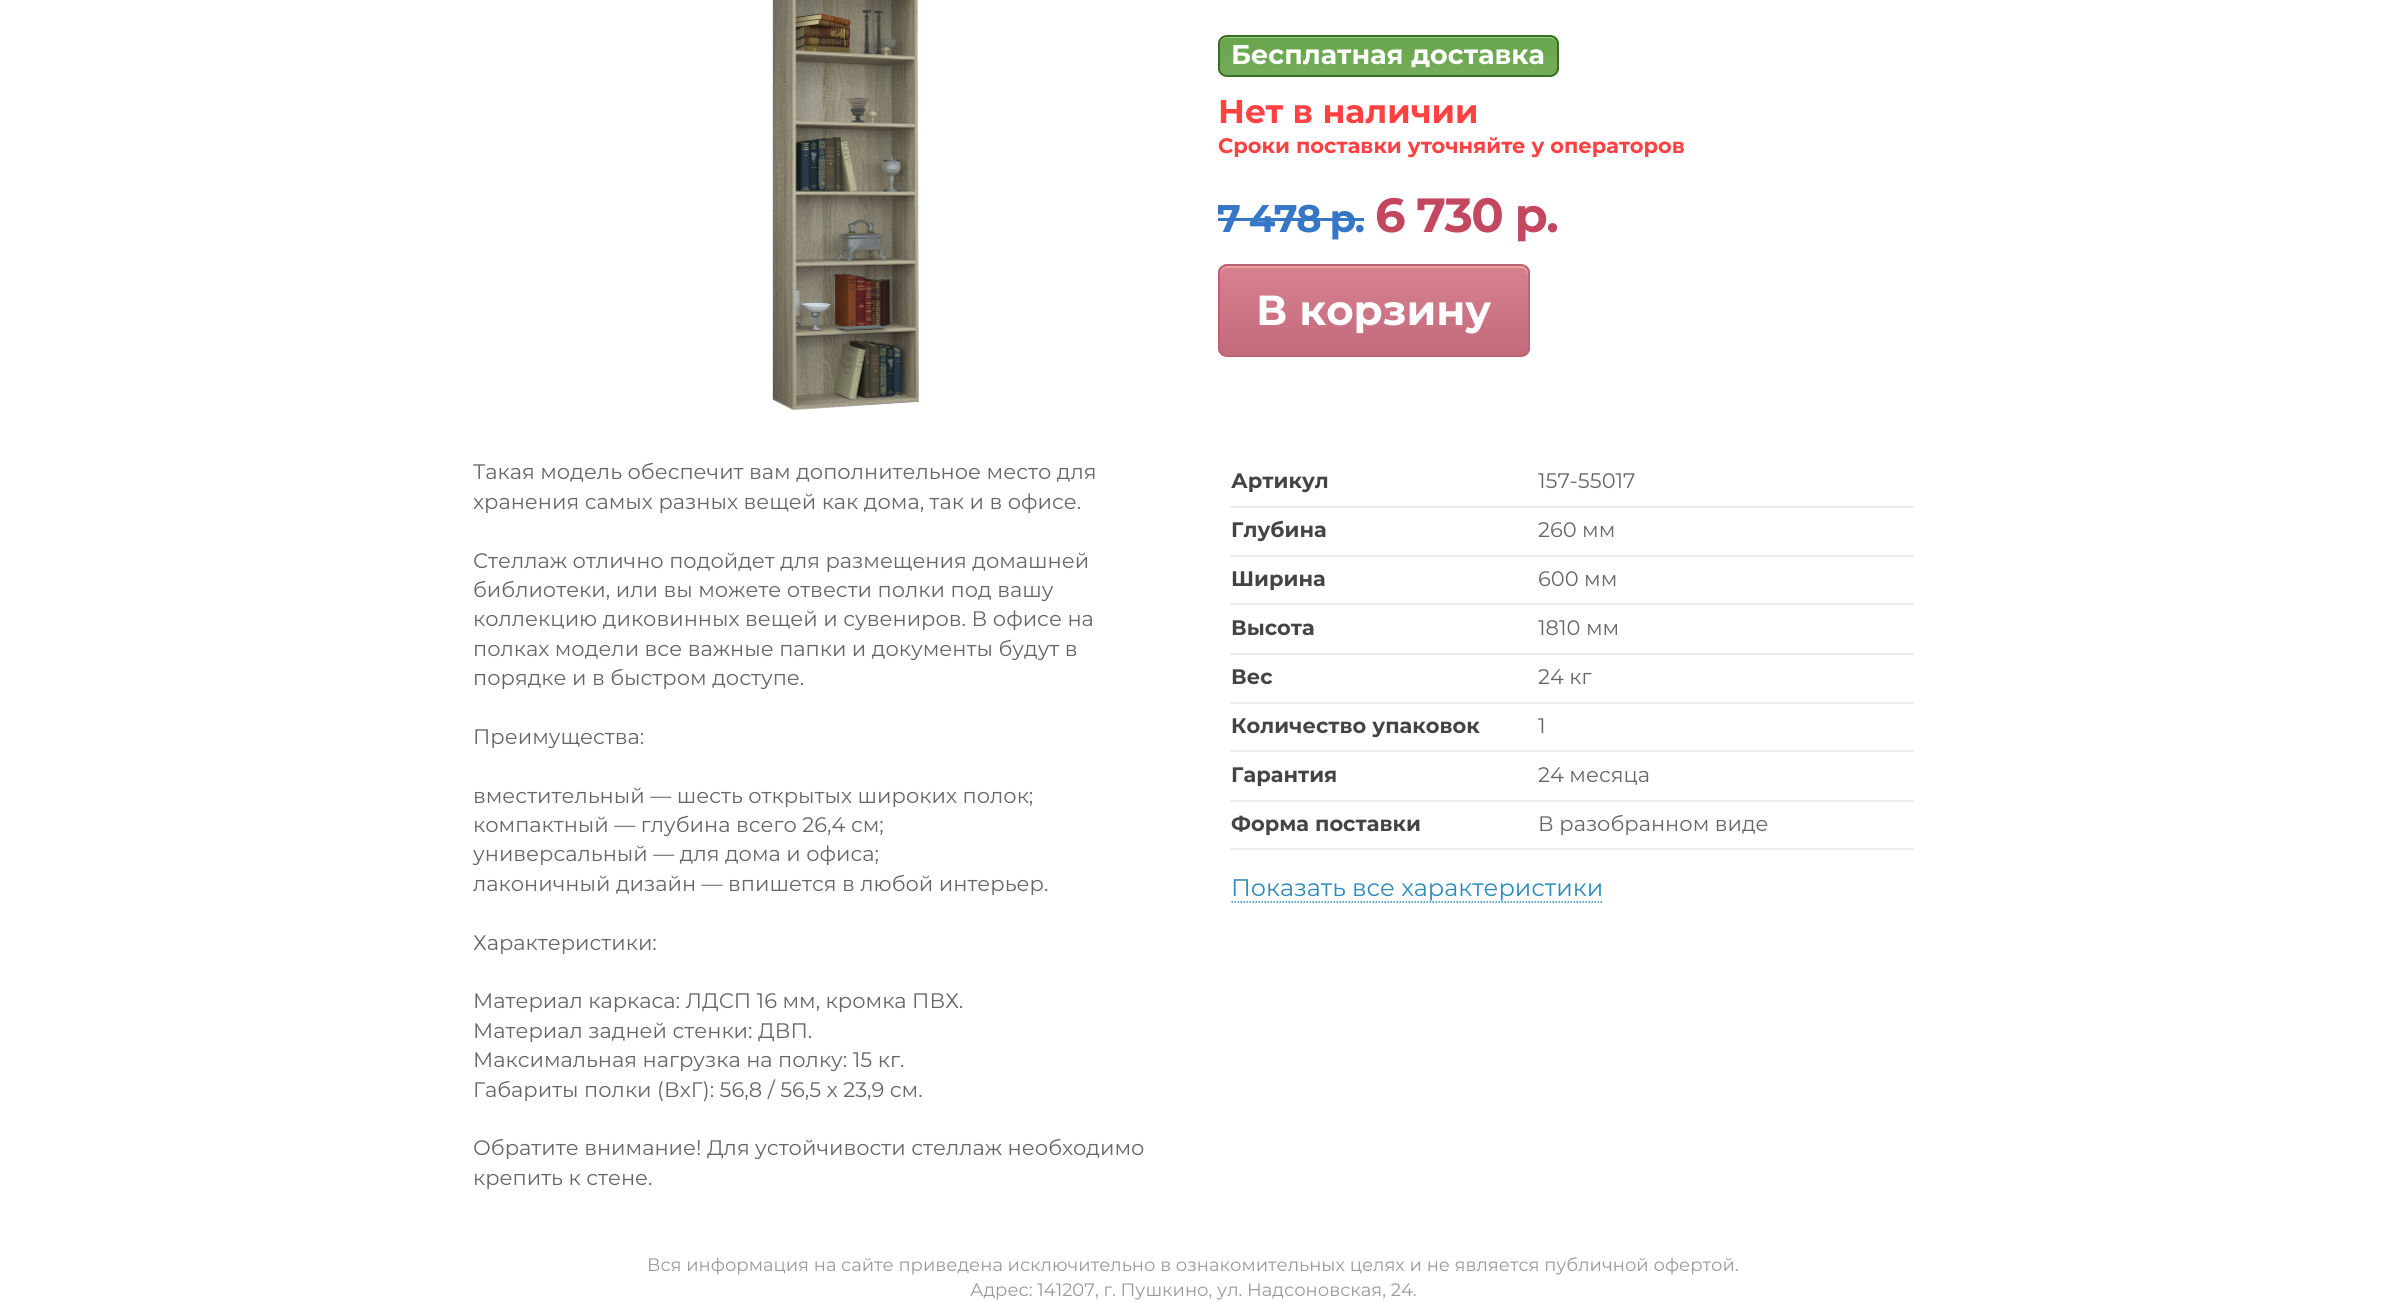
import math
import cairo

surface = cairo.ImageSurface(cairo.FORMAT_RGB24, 2386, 1302)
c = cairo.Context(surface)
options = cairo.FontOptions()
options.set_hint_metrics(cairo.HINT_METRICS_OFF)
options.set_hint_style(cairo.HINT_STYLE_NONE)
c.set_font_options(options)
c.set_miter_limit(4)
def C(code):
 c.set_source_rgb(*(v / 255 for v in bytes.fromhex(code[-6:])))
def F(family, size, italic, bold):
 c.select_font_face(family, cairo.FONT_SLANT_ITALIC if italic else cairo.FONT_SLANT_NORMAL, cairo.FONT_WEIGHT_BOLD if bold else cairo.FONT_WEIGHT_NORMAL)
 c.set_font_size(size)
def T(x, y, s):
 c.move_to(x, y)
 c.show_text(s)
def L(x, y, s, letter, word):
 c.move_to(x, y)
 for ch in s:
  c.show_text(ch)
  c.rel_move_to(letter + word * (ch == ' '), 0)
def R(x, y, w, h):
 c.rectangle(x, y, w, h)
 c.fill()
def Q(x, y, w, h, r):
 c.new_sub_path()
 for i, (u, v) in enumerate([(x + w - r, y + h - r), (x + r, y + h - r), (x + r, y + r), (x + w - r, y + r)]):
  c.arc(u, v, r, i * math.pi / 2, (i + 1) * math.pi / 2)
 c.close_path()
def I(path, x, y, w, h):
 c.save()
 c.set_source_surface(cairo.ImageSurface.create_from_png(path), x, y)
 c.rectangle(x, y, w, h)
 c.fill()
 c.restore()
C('ffffff')
c.paint()
I('1.png',772,0,148,410)
c.save()
Q(1218,35,341,42,9)
c.clip()
gradient = cairo.LinearGradient(1388,36,1388,75)
gradient.add_color_stop_rgba(.05,0.408,0.647,0.294,1)
gradient.add_color_stop_rgba(1,0.455,0.678,0.353,1)
c.set_source(gradient)
R(1218,36,341,39)
c.restore()
C('9acc85')
c.new_path()
c.move_to(1227,38)
c.line_to(1550,38)
c.curve_to(1554,38,1557,41,1557,45)
c.line_to(1557,44)
c.curve_to(1557,40,1553,36,1549,36)
c.line_to(1228,36)
c.curve_to(1224,36,1220,40,1220,44)
c.line_to(1220,45)
c.curve_to(1220,41,1223,38,1227,38)
c.close_path()
c.fill()
Q(1219,36,339,40,8)
C('3b6e22')
c.stroke()
F('Montserrat',27,0,1)
C('ffffff')
T(1231,64,'Бесплатная доставка')
I('2.png',1218,100,466,58)
F('Montserrat',38.5,0,1)
C('3576c5')
L(1217,232,'7 478 р.',-1.5,0)
R(1218,218,146,3)
F('Montserrat',48,0,1)
C('c3485f')
L(1375,232,'6 730 р.',-1.5,0)
c.save()
Q(1218,264,312,93,9)
c.clip()
gradient = cairo.LinearGradient(1374,266,1374,356)
gradient.add_color_stop_rgba(.05,0.839,0.502,0.565,1)
gradient.add_color_stop_rgba(1,0.761,0.416,0.482,1)
c.set_source(gradient)
R(1218,266,312,90)
c.restore()
C('eca39c')
c.new_path()
c.move_to(1227,268)
c.line_to(1521,268)
c.curve_to(1525,268,1528,272,1528,276)
c.line_to(1528,352)
c.curve_to(1529,351,1529,349,1529,348)
c.line_to(1529,274)
c.curve_to(1529,270,1525,266,1521,266)
c.line_to(1228,266)
c.curve_to(1224,266,1220,270,1220,274)
c.line_to(1220,276)
c.curve_to(1220,272,1223,268,1227,268)
c.close_path()
c.fill()
Q(1219,265,310,91,8)
C('b96373')
c.stroke()
F('Montserrat',42,0,1)
C('ffffff')
T(1256,325,'В корзину')
F('Montserrat',21,0,0)
C('666666')
T(473,479,'Такая модель обеспечит вам дополнительное место для')
T(473,509,'хранения самых разных вещей как дома, так и в офисе.')
T(473,568,'Стеллаж отлично подойдет для размещения домашней')
T(473,597,'библиотеки, или вы можете отвести полки под вашу')
T(473,626,'коллекцию диковинных вещей и сувениров. В офисе на')
T(473,656,'полках модели все важные папки и документы будут в')
T(473,685,'порядке и в быстром доступе.')
T(473,744,'Преимущества:')
T(473,803,'вместительный — шесть открытых широких полок;')
T(473,832,'компактный — глубина всего 26,4 см;')
T(473,861,'универсальный — для дома и офиса;')
T(473,891,'лаконичный дизайн — впишется в любой интерьер.')
T(473,950,'Характеристики:')
T(473,1008,'Материал каркаса: ЛДСП 16 мм, кромка ПВХ.')
T(473,1038,'Материал задней стенки: ДВП.')
T(473,1067,'Максимальная нагрузка на полку: 15 кг.')
T(473,1097,'Габариты полки (ВхГ): 56,8 / 56,5 х 23,9 см.')
T(473,1155,'Обратите внимание! Для устойчивости стеллаж необходимо')
T(473,1185,'крепить к стене.')
F('Montserrat',21,0,1)
C('444444')
T(1231,488,'Артикул')
C('ececec')
R(1230,506,684,2)
F('Montserrat',21,0,0)
C('666666')
T(1538,488,'157-55017')
F('Montserrat',21,0,1)
C('444444')
T(1231,537,'Глубина')
C('ececec')
R(1230,555,684,2)
F('Montserrat',21,0,0)
C('666666')
T(1538,537,'260 мм')
F('Montserrat',21,0,1)
C('444444')
T(1231,586,'Ширина')
C('ececec')
R(1230,603,684,2)
F('Montserrat',21,0,0)
C('666666')
T(1538,586,'600 мм')
F('Montserrat',21,0,1)
C('444444')
T(1231,635,'Высота')
C('ececec')
R(1230,653,684,2)
F('Montserrat',21,0,0)
C('666666')
T(1538,635,'1810 мм')
F('Montserrat',21,0,1)
C('444444')
T(1231,684,'Вес')
C('ececec')
R(1230,702,684,2)
F('Montserrat',21,0,0)
C('666666')
T(1538,684,'24 кг')
F('Montserrat',21,0,1)
C('444444')
T(1231,733,'Количество упаковок')
C('ececec')
R(1230,750,684,2)
F('Montserrat',21,0,0)
C('666666')
T(1538,733,'1')
F('Montserrat',21,0,1)
C('444444')
T(1231,782,'Гарантия')
C('ececec')
R(1230,800,684,2)
F('Montserrat',21,0,0)
C('666666')
T(1538,782,'24 месяца')
F('Montserrat',21,0,1)
C('444444')
T(1231,831,'Форма поставки')
C('ececec')
R(1230,848,684,2)
F('Montserrat',21,0,0)
C('666666')
T(1538,831,'В разобранном виде')
F('Montserrat',24,0,0)
C('2e8bb9')
T(1231,896,'Показать все характеристики')
c.new_path()
c.move_to(1231.5,902)
c.line_to(1603.5,902)
c.set_line_width(1.5)
c.set_dash([1.5,1.5])
c.stroke()
F('Montserrat',18,0,0)
C('999999')
T(647,1271,'Вся информация на сайте приведена исключительно в ознакомительных целях и не является публичной офертой.')
T(970,1296,'Адрес: 141207, г. Пушкино, ул. Надсоновская, 24.')
surface.write_to_png('o.png')
